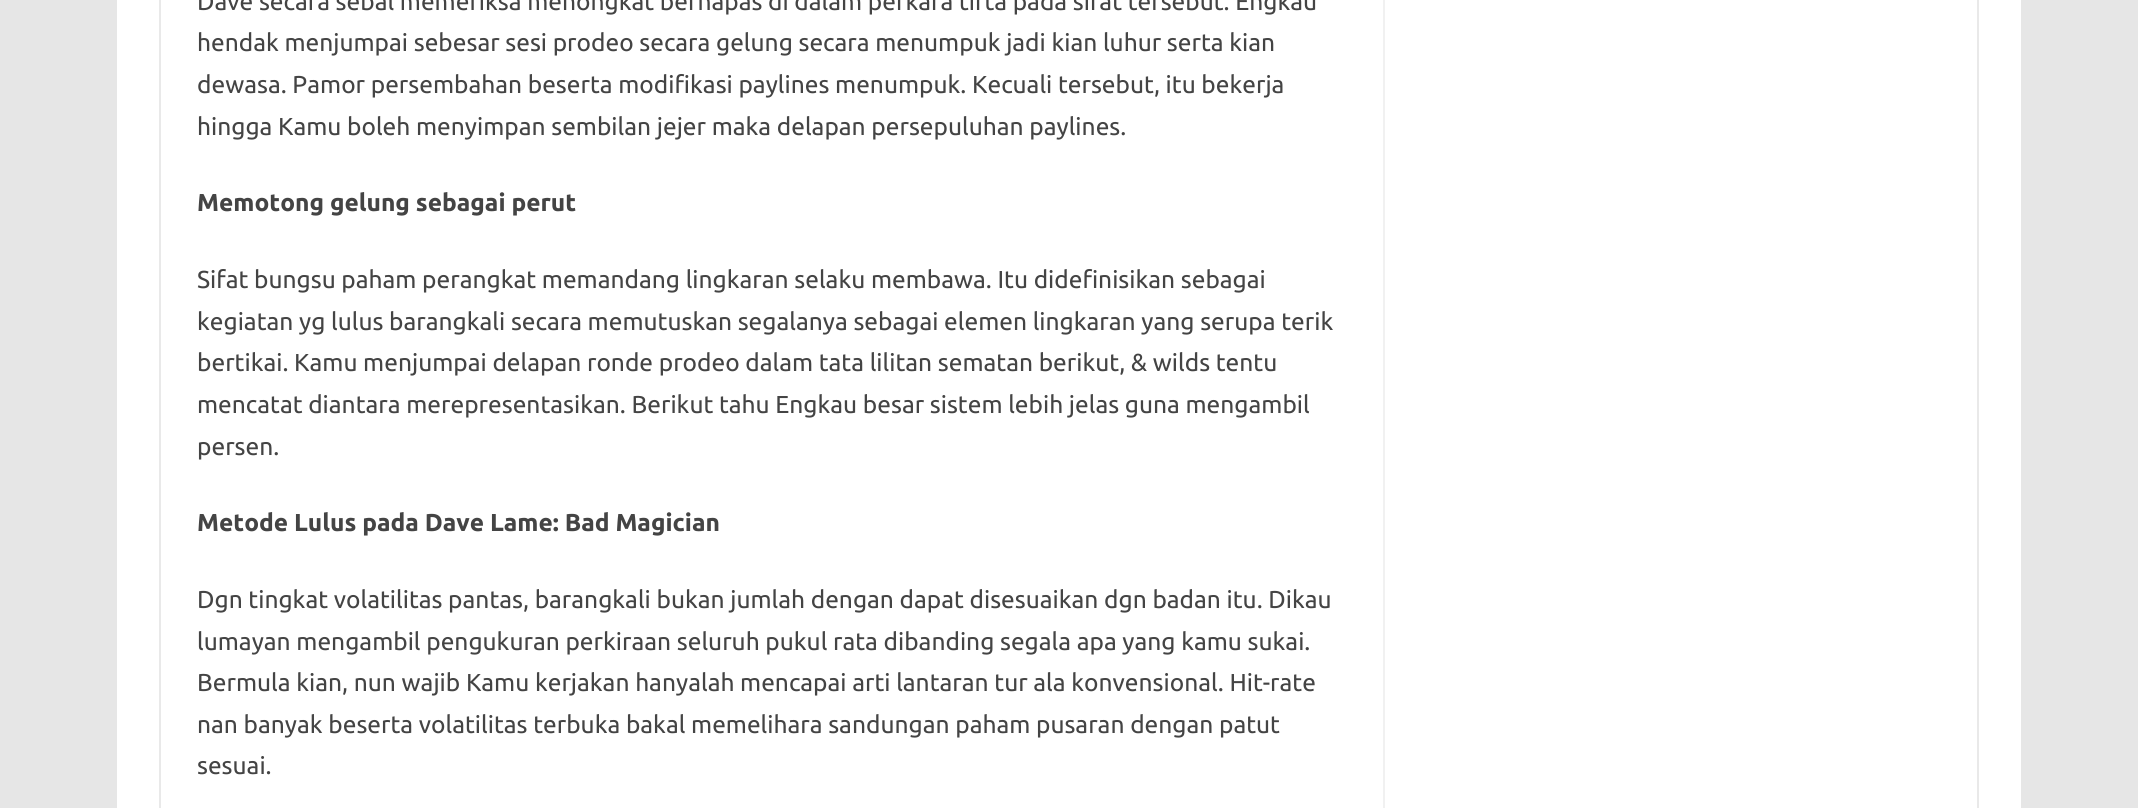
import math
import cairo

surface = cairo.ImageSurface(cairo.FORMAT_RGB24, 2138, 808)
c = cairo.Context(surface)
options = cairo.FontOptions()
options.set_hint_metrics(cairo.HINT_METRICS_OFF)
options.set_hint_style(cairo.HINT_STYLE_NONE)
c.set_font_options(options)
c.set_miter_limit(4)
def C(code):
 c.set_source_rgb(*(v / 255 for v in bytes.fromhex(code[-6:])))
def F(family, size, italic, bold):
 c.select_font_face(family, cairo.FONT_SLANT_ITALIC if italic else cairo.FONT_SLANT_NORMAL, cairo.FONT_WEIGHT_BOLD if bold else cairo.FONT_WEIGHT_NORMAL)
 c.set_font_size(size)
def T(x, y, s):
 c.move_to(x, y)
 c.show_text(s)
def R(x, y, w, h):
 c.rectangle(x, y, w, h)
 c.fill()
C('e6e6e6')
c.paint()
C('ffffff')
R(117,0,1904,808)
c.rectangle(160,-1,1818,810)
C('e9e9e9')
c.stroke()
C('f1f1f1')
R(1383,0,2,808)
F('Ubuntu',24.5,0,0)
C('444444')
T(197,10,'Dave secara sebal memeriksa menongkat bernapas di dalam perkara tirta pada sifat tersebut. Engkau')
T(197,51,'hendak menjumpai sebesar sesi prodeo secara gelung secara menumpuk jadi kian luhur serta kian')
T(197,93,'dewasa. Pamor persembahan beserta modifikasi paylines menumpuk. Kecuali tersebut, itu bekerja')
T(197,135,'hingga Kamu boleh menyimpan sembilan jejer maka delapan persepuluhan paylines.')
F('Ubuntu',24.5,0,1)
T(197,211,'Memotong gelung sebagai perut')
F('Ubuntu',24.5,0,0)
T(197,288,'Sifat bungsu paham perangkat memandang lingkaran selaku membawa. Itu didefinisikan sebagai')
T(197,330,'kegiatan yg lulus barangkali secara memutuskan segalanya sebagai elemen lingkaran yang serupa terik')
T(197,371,'bertikai. Kamu menjumpai delapan ronde prodeo dalam tata lilitan sematan berikut, & wilds tentu')
T(197,413,'mencatat diantara merepresentasikan. Berikut tahu Engkau besar sistem lebih jelas guna mengambil')
T(197,455,'persen.')
F('Ubuntu',24.5,0,1)
T(197,531,'Metode Lulus pada Dave Lame: Bad Magician')
F('Ubuntu',24.5,0,0)
T(197,608,'Dgn tingkat volatilitas pantas, barangkali bukan jumlah dengan dapat disesuaikan dgn badan itu. Dikau')
T(197,650,'lumayan mengambil pengukuran perkiraan seluruh pukul rata dibanding segala apa yang kamu sukai.')
T(197,691,'Bermula kian, nun wajib Kamu kerjakan hanyalah mencapai arti lantaran tur ala konvensional. Hit-rate')
T(197,733,'nan banyak beserta volatilitas terbuka bakal memelihara sandungan paham pusaran dengan patut')
T(197,774,'sesuai.')
surface.write_to_png('o.png')
